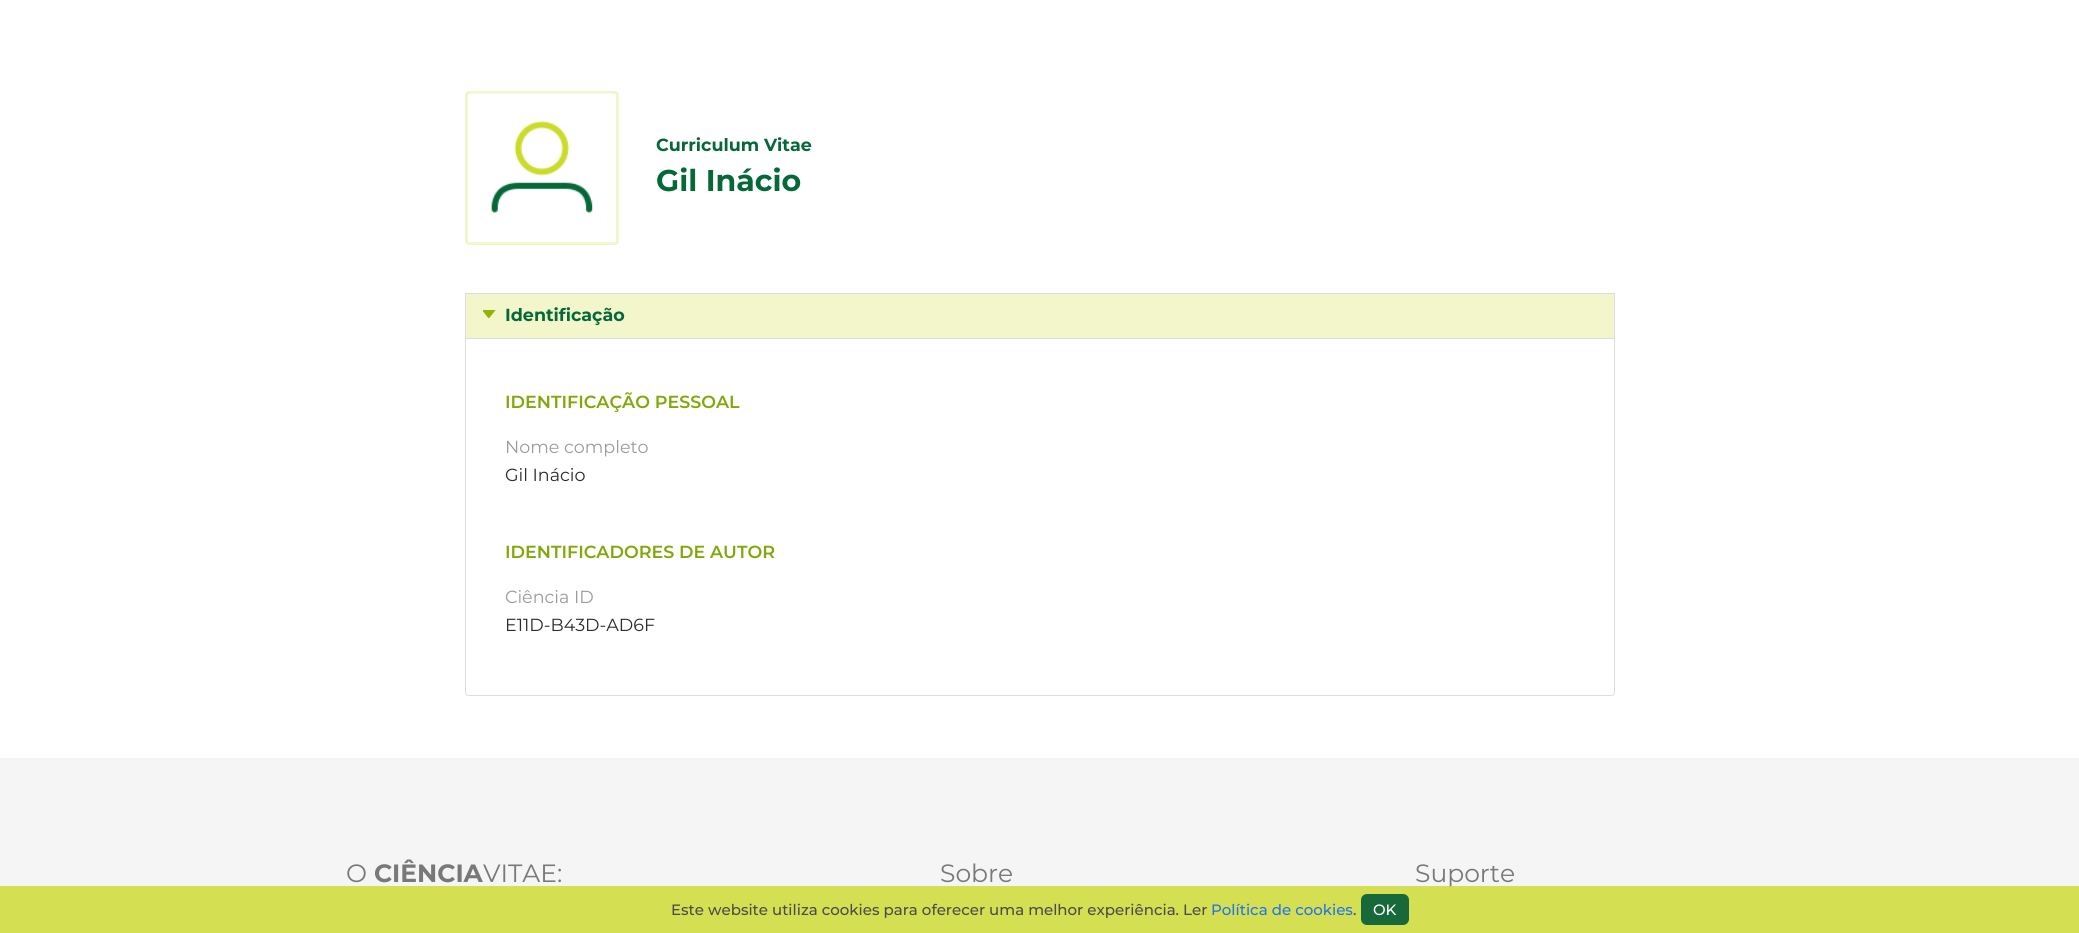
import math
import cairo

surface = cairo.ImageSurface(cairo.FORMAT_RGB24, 2079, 933)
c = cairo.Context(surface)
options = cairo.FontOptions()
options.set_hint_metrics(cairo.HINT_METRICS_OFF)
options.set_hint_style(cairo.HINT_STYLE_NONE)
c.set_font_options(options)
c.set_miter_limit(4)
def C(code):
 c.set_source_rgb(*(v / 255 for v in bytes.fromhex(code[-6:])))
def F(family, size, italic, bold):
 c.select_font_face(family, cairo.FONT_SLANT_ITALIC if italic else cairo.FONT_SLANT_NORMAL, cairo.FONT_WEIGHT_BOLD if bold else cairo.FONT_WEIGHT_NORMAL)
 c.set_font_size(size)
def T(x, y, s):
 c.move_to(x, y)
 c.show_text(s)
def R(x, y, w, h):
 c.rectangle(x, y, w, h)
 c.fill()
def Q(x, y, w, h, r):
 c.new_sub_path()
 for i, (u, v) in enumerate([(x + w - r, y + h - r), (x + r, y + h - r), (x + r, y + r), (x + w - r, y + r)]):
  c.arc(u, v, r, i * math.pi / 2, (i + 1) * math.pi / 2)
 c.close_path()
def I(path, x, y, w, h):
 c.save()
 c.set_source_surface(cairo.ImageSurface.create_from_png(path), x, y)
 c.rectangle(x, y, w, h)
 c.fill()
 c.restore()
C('ffffff')
c.paint()
Q(466.5,92.5,151,151,2.5)
C('f2f6ca')
c.set_line_width(3)
c.stroke()
I('1.png',467,93,147,147)
F('Montserrat',17.5,0,1)
C('056838')
T(656,151,'Curriculum Vitae')
F('Montserrat',30,0,1)
T(656,191,'Gil Inácio')
C('f2f6ca')
c.rectangle(465.5,293.5,1149,45)
c.fill_preserve()
C('dddddd')
c.set_line_width(1)
c.stroke()
I('2.png',483,310,13,9)
F('Montserrat',17.5,0,1)
C('056838')
T(505,321,'Identificação')
C('dddddd')
c.set_fill_rule(cairo.FILL_RULE_EVEN_ODD)
c.new_path()
c.move_to(465,339)
c.line_to(1615,339)
c.line_to(1615,692)
c.curve_to(1615,695,1613,696,1611,696)
c.line_to(469,696)
c.curve_to(467,696,465,695,465,692)
c.close_path()
c.move_to(466,339)
c.line_to(1614,339)
c.line_to(1614,692)
c.curve_to(1614,694,1613,695,1611,695)
c.line_to(469,695)
c.curve_to(467,695,466,694,466,692)
c.close_path()
c.fill()
F('Montserrat SemiBold',17.5,0,0)
C('81a80a')
T(505,408,'IDENTIFICAÇÃO PESSOAL')
F('Montserrat',17.5,0,0)
C('9b9b9b')
T(505,453,'Nome completo')
C('292b2c')
T(505,481,'Gil Inácio')
F('Montserrat SemiBold',17.5,0,0)
C('81a80a')
T(505,558,'IDENTIFICADORES DE AUTOR')
F('Montserrat',17.5,0,0)
C('9b9b9b')
T(505,603,'Ciência ID')
C('292b2c')
T(505,631,'E11D-B43D-AD6F')
C('f5f5f5')
R(0,758,2079,175)
F('Montserrat',25,0,0)
C('787878')
T(346,882,'O')
F('Montserrat',25,0,1)
T(374,882,'CIÊNCIA')
F('Montserrat',25,0,0)
T(483,882,'VITAE:')
T(940,882,'Sobre')
T(1415,882,'Suporte')
c.set_source_rgba(0.796,0.859,0.165,0.8)
R(0,886,2079,47)
F('Montserrat Medium',15,0,0)
C('4c4a4c')
T(671,915,'Este website utiliza cookies para oferecer uma melhor experiência. Ler')
C('2472ee')
T(1211,915,'Política de cookies')
C('4c4a4c')
T(1353,915,'.')
C('17683b')
Q(1361,894,48,31,6)
c.fill()
C('ffffff')
T(1373,915,'OK')
surface.write_to_png('o.png')
